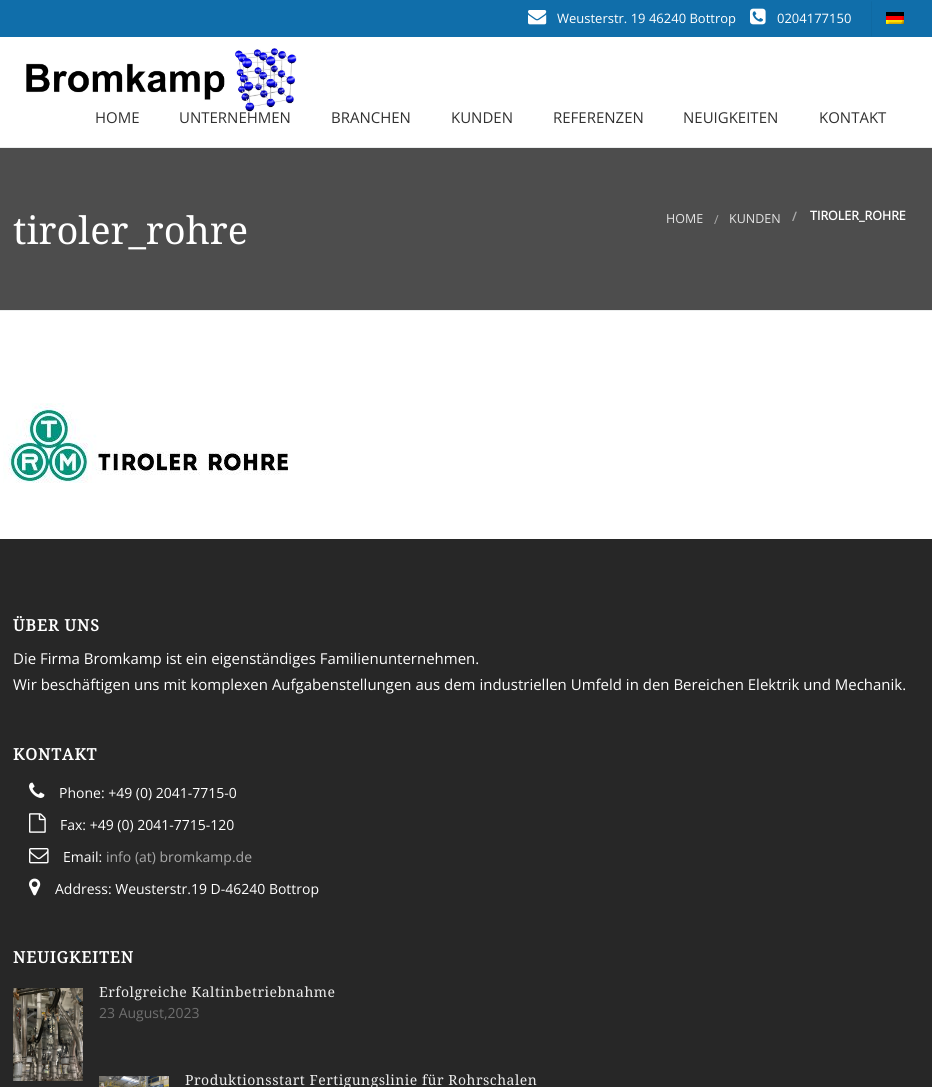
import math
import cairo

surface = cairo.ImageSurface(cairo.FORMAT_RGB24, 932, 1087)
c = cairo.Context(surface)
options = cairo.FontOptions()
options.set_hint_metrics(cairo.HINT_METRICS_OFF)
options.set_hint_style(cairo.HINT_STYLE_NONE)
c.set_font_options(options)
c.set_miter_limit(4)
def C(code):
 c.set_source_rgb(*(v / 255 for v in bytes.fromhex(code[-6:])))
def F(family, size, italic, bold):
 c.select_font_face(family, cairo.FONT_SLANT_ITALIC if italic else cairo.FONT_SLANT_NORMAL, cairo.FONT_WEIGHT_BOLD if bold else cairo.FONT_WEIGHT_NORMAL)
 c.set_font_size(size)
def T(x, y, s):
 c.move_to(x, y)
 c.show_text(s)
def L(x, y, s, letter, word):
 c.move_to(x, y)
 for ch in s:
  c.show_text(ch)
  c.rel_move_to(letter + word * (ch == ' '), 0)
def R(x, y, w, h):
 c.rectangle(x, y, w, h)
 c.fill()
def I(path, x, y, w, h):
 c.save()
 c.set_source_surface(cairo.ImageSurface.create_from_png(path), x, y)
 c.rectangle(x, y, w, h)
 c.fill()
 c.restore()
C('ffffff')
c.paint()
C('106eaa')
R(0,0,932,37)
I('1.png',528,10,19,15)
F('Open Sans',13,0,0)
C('ffffff')
T(557,23,'Weusterstr. 19 46240 Bottrop')
I('2.png',750,8,16,17)
T(777,23,'0204177150')
C('0f69a2')
c.new_path()
c.move_to(871,37)
c.line_to(871,1)
c.line_to(872,2)
c.line_to(872,36)
c.close_path()
c.fill()
I('3.png',886,12,18,12)
I('4.png',26,48,271,64)
F('Open Sans',15,0,0)
C('303030')
T(95,123,'HOME')
T(179,123,'UNTERNEHMEN')
T(331,123,'BRANCHEN')
T(451,123,'KUNDEN')
T(553,123,'REFERENZEN')
T(683,123,'NEUIGKEITEN')
T(819,123,'KONTAKT')
C('ebeded')
R(0,147,932,1)
R(0,310,932,1)
C('4d4d4d')
R(0,148,932,162)
F('Noto Serif',38,0,0)
C('ffffff')
T(13,244,'tiroler_rohre')
F('Open Sans',12.5,0,0)
C('e4e4e4')
T(666,223,'HOME')
C('aaaaaa')
T(714,224,'/')
C('e4e4e4')
T(729,223,'KUNDEN')
F('Open Sans',12.5,0,1)
C('aaaaaa')
T(792,221,'/')
C('ffffff')
T(810,220,'TIROLER_ROHRE')
I('5.png',3,403,285,80)
C('272727')
R(0,539,932,548)
F('Noto Serif',16,0,1)
C('ffffff')
L(13,631,'ÜBER UNS',1,0)
F('Open Sans',15,0,0)
T(13,664,'Die Firma Bromkamp ist ein eigenständiges Familienunternehmen.')
T(13,690,'Wir beschäftigen uns mit komplexen Aufgabenstellungen aus dem industriellen Umfeld in den Bereichen Elektrik und Mechanik.')
F('Noto Serif',16,0,1)
L(13,760,'KONTAKT',1,0)
I('6.png',29,782,16,16)
F('Open Sans',14,0,0)
T(59,798,'Phone: +49 (0) 2041-7715-0')
I('7.png',29,813,17,20)
T(60,830,'Fax: +49 (0) 2041-7715-120')
I('8.png',29,848,20,16)
T(63,862,'Email:')
C('aaaaaa')
T(106,862,'info (at) bromkamp.de')
I('9.png',29,878,12,18)
C('ffffff')
T(55,894,'Address: Weusterstr.19 D-46240 Bottrop')
F('Noto Serif',16,0,1)
L(13,963,'NEUIGKEITEN',1,0)
I('10.png',13,988,70,93)
F('Noto Serif',14,0,0)
C('eeeeee')
L(99,997,'Erfolgreiche Kaltinbetriebnahme',.5,0)
F('Open Sans',14,0,0)
C('6f6f6f')
T(99,1018,'23 August,2023')
I('11.png',99,1076,70,11)
F('Noto Serif',14,0,0)
C('eeeeee')
L(185,1085,'Produktionsstart Fertigungslinie für Rohrschalen',.5,0)
surface.write_to_png('o.png')
